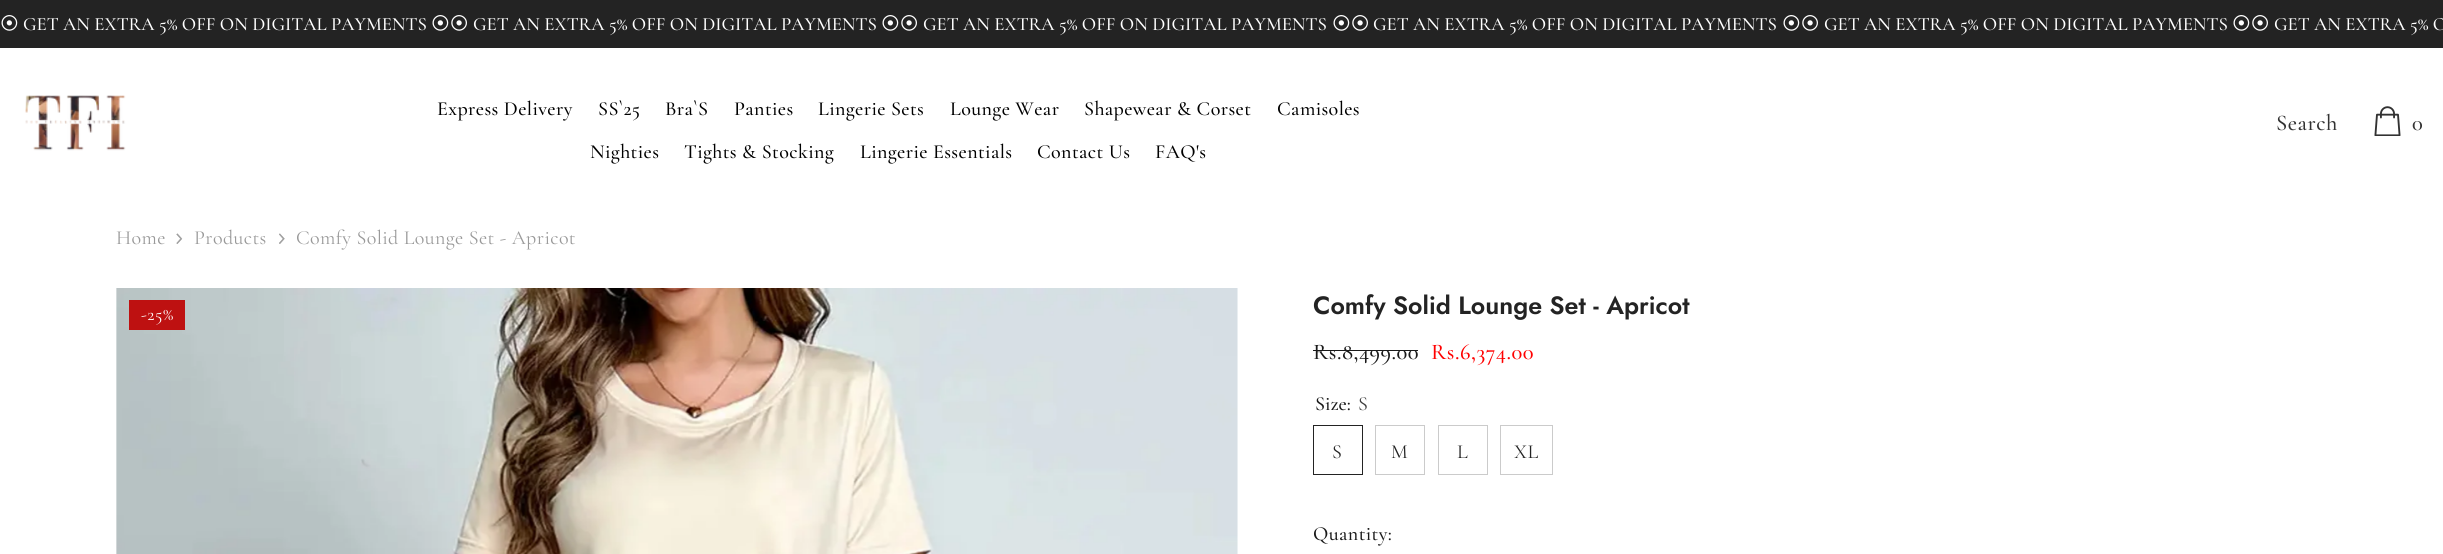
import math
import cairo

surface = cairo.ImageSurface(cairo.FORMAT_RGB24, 2443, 554)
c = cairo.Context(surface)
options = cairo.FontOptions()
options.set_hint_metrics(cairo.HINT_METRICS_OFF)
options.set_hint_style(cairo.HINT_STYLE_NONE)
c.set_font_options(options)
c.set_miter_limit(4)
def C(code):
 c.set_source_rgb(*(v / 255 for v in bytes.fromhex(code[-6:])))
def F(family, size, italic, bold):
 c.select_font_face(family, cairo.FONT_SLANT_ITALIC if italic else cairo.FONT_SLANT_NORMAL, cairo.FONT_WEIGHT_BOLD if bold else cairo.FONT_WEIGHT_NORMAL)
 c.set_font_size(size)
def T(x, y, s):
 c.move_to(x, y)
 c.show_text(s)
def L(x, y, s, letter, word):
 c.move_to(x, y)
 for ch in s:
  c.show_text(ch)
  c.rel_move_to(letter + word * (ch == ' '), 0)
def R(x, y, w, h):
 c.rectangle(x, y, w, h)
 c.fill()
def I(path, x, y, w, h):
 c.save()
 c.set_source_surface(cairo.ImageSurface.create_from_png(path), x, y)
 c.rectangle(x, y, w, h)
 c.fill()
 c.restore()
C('ffffff')
c.paint()
C('232323')
R(0,0,2443,48)
F('IPAGothic',18.75,0,0)
C('ffffff')
T(0,30,'⦿')
F('Cormorant Garamond Medium',18.75,0,0)
T(23,30,'GET AN EXTRA 5% OFF ON DIGITAL PAYMENTS')
F('IPAGothic',18.75,0,0)
T(431,30,'⦿⦿')
F('Cormorant Garamond Medium',18.75,0,0)
T(473,30,'GET AN EXTRA 5% OFF ON DIGITAL PAYMENTS')
F('IPAGothic',18.75,0,0)
T(881,30,'⦿⦿')
F('Cormorant Garamond Medium',18.75,0,0)
T(923,30,'GET AN EXTRA 5% OFF ON DIGITAL PAYMENTS')
F('IPAGothic',18.75,0,0)
T(1332,30,'⦿⦿')
F('Cormorant Garamond Medium',18.75,0,0)
T(1373,30,'GET AN EXTRA 5% OFF ON DIGITAL PAYMENTS')
F('IPAGothic',18.75,0,0)
T(1782,30,'⦿⦿')
F('Cormorant Garamond Medium',18.75,0,0)
T(1824,30,'GET AN EXTRA 5% OFF ON DIGITAL PAYMENTS')
F('IPAGothic',18.75,0,0)
T(2232,30,'⦿⦿')
F('Cormorant Garamond Medium',18.75,0,0)
T(2274,30,'GET AN EXTRA 5% O')
I('1.png',25,95,101,56)
F('Cormorant Garamond Medium',20,0,0)
C('000000')
L(437,115,'Express Delivery',.4,0)
L(598,115,'SS`25',.4,0)
L(665,115,'Bra`S',.4,0)
L(734,115,'Panties',.4,0)
L(818,115,'Lingerie Sets',.4,0)
L(950,115,'Lounge Wear',.4,0)
L(1084,115,'Shapewear & Corset',.4,0)
L(1277,115,'Camisoles',.4,0)
L(590,158,'Nighties',.4,0)
L(684,158,'Tights & Stocking',.4,0)
L(860,158,'Lingerie Essentials',.4,0)
L(1037,158,'Contact Us',.4,0)
L(1155,158,'FAQ\'s',.4,0)
F('Cormorant Garamond Medium',22.5,0,0)
C('323232')
L(2276,130,'Search',.5,0)
I('2.png',2374,106,27,30)
L(2412,130,'0',.5,0)
F('Cormorant Garamond',20,0,0)
C('999999')
L(116,244,'Home',.4,0)
I('3.png',176,233,7,11)
L(194,244,'Products',.4,0)
I('4.png',279,233,6,11)
L(296,244,'Comfy Solid Lounge Set - Apricot',.4,0)
I('5.png',116,288,1122,266)
C('be1111')
R(129,300,56,30)
F('Cormorant Garamond',18,0,0)
C('ffffff')
L(141,320,'-25%',.5,0)
F('Jost SemiBold',25,0,0)
C('232323')
T(1313,314,'Comfy Solid Lounge Set - Apricot')
F('Cormorant Garamond Medium',22.5,0,0)
C('191919')
L(1313,359,'Rs.8,499.00',.5,0)
R(1313,350,105,1)
C('ff0000')
L(1431,359,'Rs.6,374.00',.5,0)
F('Cormorant Garamond Medium',20,0,0)
C('191919')
T(1315,410,'Size:')
F('Cormorant Garamond',20,0,0)
C('3c3c3c')
T(1358,410,'S')
c.rectangle(1313.5,425.5,49,49)
C('232323')
c.set_line_width(1)
c.stroke()
L(1332,458,'S',.4,0)
c.rectangle(1375.5,425.5,49,49)
C('cbcbcb')
c.stroke()
C('232323')
L(1391,458,'M',.4,0)
c.rectangle(1438.5,425.5,49,49)
C('cbcbcb')
c.stroke()
C('232323')
L(1457,458,'L',.4,0)
c.rectangle(1500.5,425.5,52,49)
C('cbcbcb')
c.stroke()
C('232323')
L(1514,458,'XL',.4,0)
F('Cormorant Garamond Medium',20,0,0)
C('191919')
L(1313,540,'Quantity:',.4,0)
surface.write_to_png('o.png')
